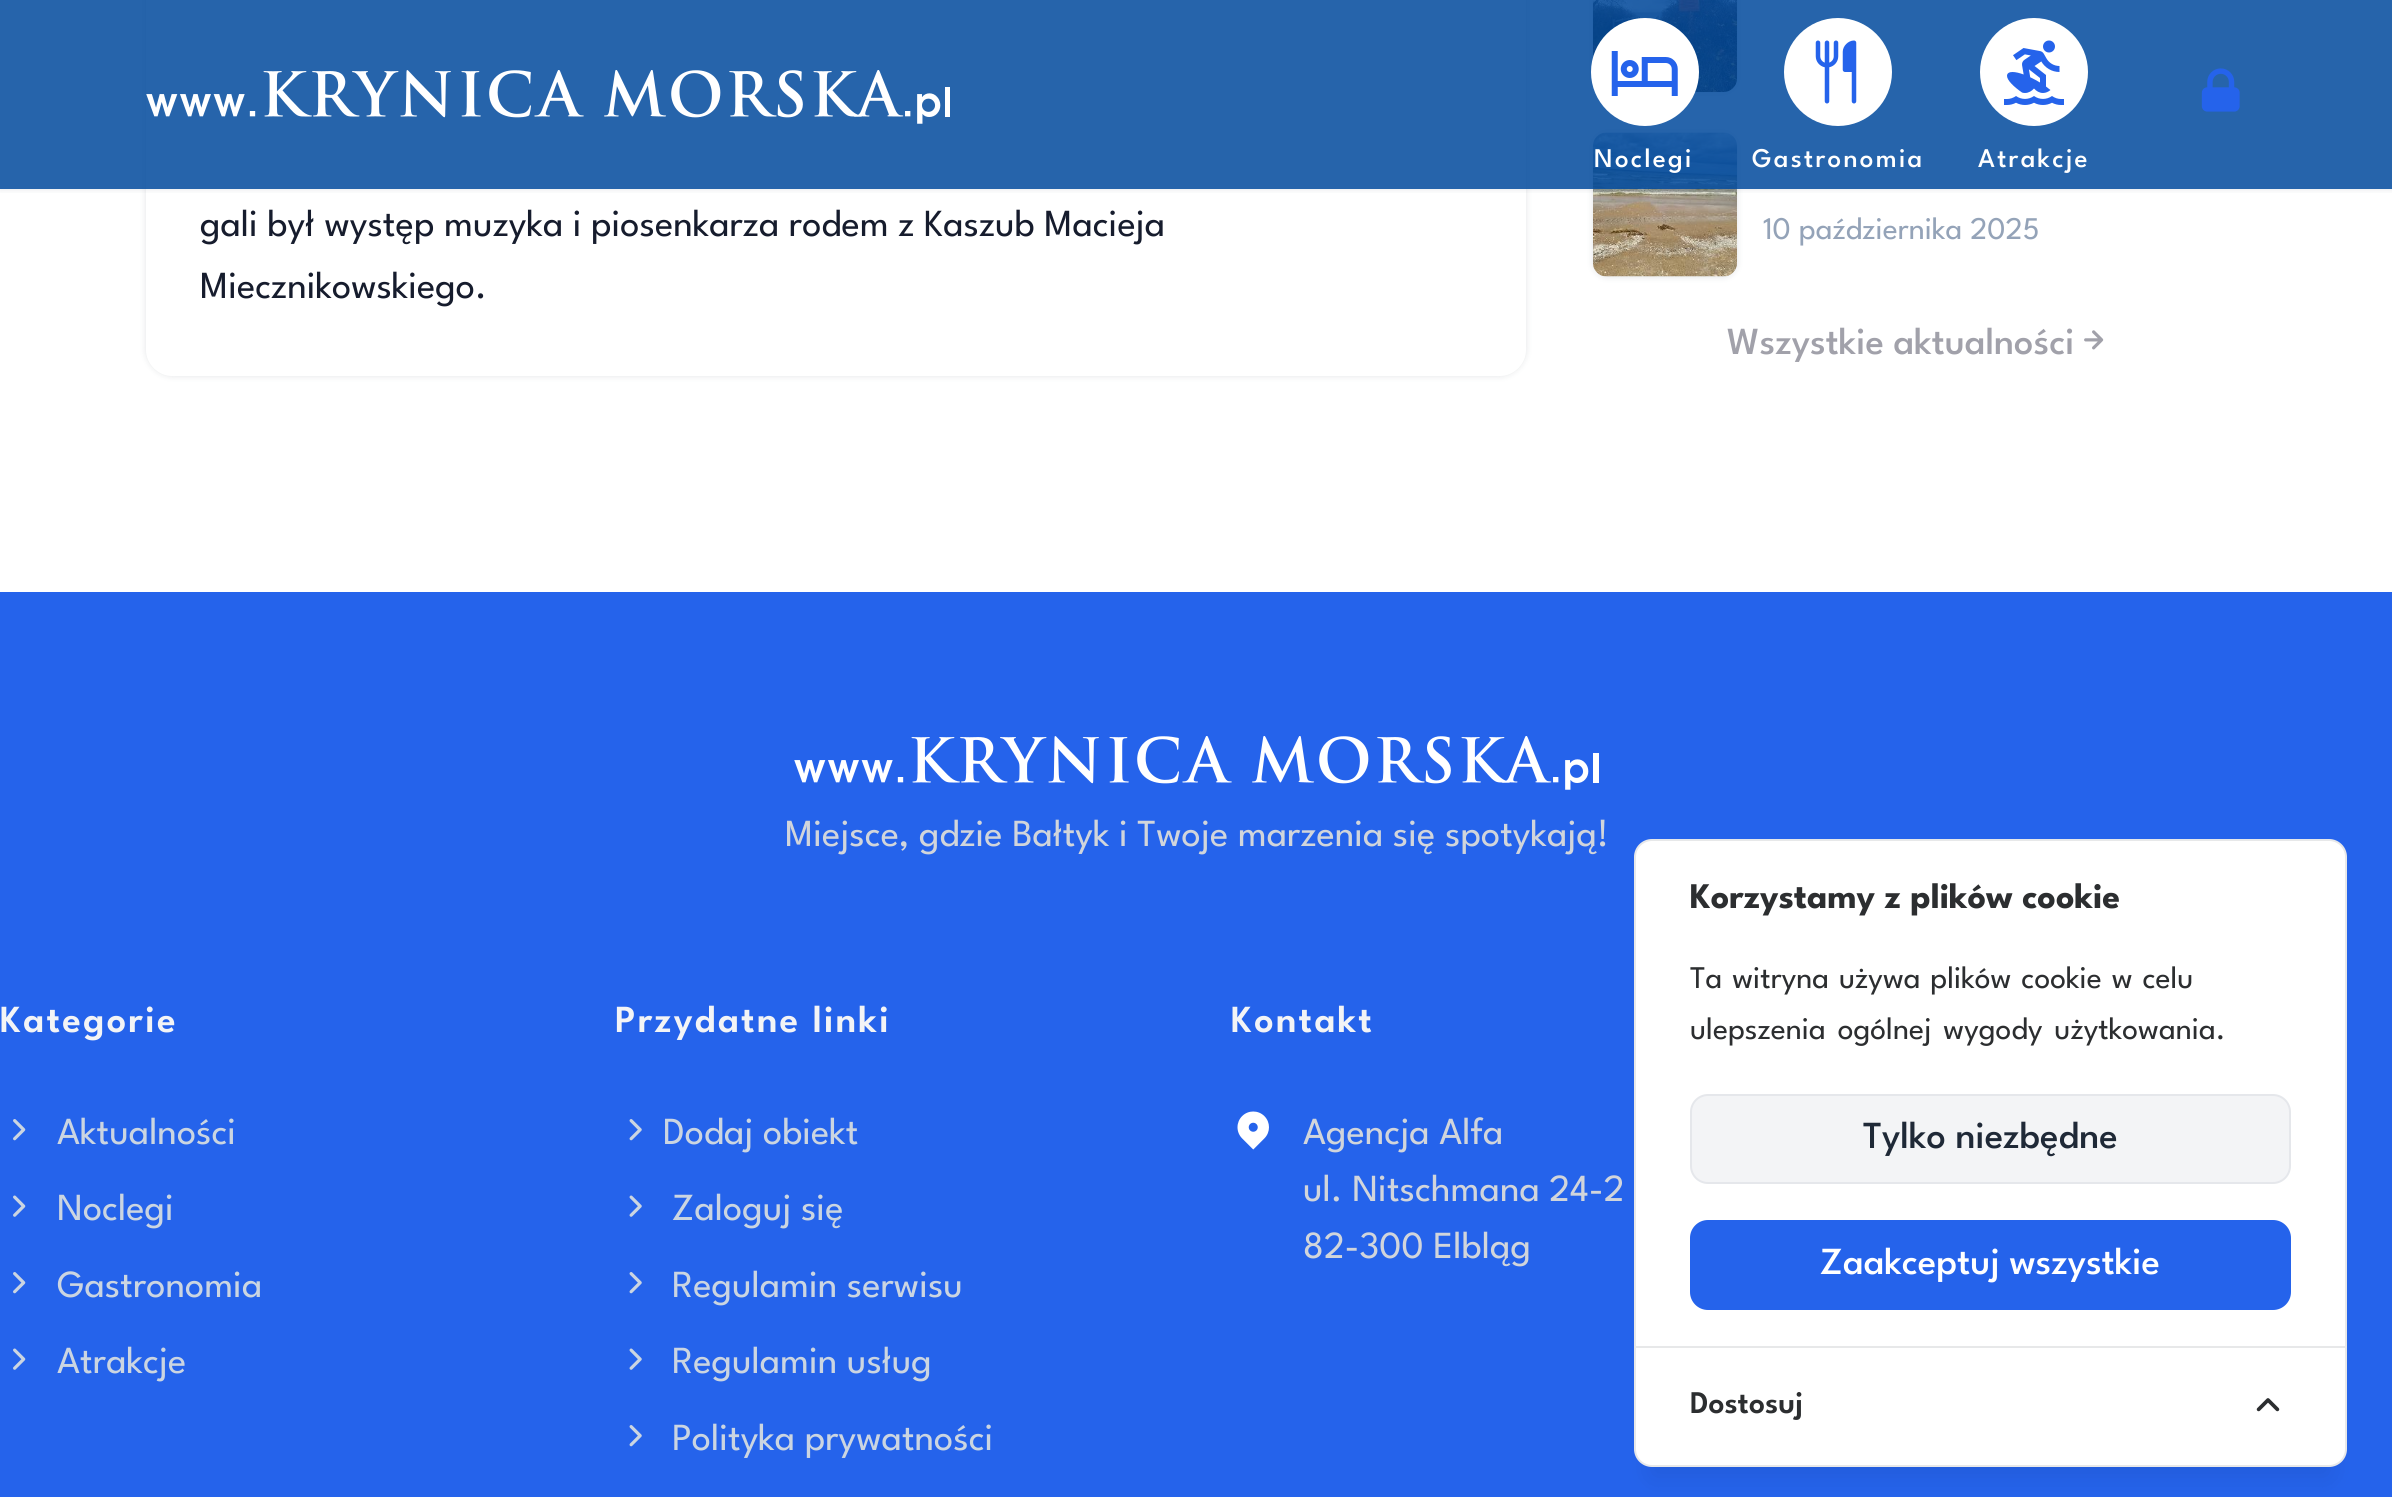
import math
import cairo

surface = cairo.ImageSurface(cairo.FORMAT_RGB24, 2392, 1497)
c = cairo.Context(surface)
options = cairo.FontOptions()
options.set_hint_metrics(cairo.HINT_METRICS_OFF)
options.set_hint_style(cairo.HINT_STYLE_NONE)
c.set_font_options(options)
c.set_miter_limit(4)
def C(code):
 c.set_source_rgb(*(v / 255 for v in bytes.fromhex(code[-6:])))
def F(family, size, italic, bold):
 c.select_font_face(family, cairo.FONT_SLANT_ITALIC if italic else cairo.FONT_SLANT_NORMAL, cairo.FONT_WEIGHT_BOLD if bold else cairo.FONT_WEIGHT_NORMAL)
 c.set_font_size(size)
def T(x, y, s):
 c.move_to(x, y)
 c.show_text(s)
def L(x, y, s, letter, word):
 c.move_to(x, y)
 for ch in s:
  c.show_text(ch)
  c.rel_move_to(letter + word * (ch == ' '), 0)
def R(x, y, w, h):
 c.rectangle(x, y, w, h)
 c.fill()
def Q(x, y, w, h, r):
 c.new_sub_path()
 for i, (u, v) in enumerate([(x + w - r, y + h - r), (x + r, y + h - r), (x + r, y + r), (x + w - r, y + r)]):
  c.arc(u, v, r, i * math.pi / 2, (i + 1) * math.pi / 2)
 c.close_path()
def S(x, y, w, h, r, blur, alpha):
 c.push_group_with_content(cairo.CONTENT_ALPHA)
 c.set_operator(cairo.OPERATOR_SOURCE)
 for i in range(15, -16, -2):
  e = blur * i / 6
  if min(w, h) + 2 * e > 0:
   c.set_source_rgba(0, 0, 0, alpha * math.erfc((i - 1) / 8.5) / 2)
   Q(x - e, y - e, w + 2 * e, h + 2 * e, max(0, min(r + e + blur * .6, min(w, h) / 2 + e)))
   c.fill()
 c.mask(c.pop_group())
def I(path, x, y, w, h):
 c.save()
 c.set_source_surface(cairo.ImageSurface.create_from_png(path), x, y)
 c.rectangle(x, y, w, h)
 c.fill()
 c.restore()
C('ffffff')
c.paint()
C('3c4858')
S(1593,-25,144,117,14,3.5,.15)
I('6.png',1593,0,144,92)
S(1593,133,144,144,14,3.5,.15)
I('7.png',1593,132,144,145)
c.save()
c.rectangle(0,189,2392,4)
c.clip()
S(0,0,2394,189,0,3.5,.15)
c.restore()
c.save()
c.set_fill_rule(cairo.FILL_RULE_EVEN_ODD)
c.new_path()
c.move_to(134,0)
c.line_to(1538,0)
c.line_to(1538,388)
c.line_to(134,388)
c.close_path()
c.move_to(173,-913)
c.line_to(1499,-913)
c.curve_to(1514,-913,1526,-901,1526,-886)
c.line_to(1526,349)
c.curve_to(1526,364,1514,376,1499,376)
c.line_to(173,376)
c.curve_to(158,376,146,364,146,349)
c.line_to(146,-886)
c.curve_to(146,-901,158,-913,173,-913)
c.close_path()
c.clip()
S(146,-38,1380,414,27,3.5,.15)
c.restore()
c.set_source_rgba(0,0.286,0.612,0.85)
R(0,0,2392,189)
I('1.png',146,70,804,54)
I('2.png',2201,68,39,44)
C('ffffff')
c.arc(1645,72,54,0,2 * math.pi)
c.fill()
I('3.png',1611,51,67,45)
F('League Spartan Medium',27,0,0)
L(1594,167,'Noclegi',2.25,0)
c.new_path()
c.arc(1838,72,54,0,2 * math.pi)
c.fill()
I('4.png',1815,40,42,64)
L(1752,167,'Gastronomia',2.25,0)
c.new_path()
c.arc(2034,72,54,0,2 * math.pi)
c.fill()
I('5.png',2004,40,60,65)
L(1978,167,'Atrakcje',2.25,0)
F('League Spartan',38.25,0,0)
C('161c2d')
T(200,236,'gali był występ muzyka i piosenkarza rodem z Kaszub Macieja')
T(200,298,'Miecznikowskiego.')
F('League Spartan',31.5,0,0)
C('94a3b8')
T(1763,239,'10 października 2025')
F('League Spartan Medium',38.25,0,0)
C('a1a1aa')
T(1727,354,'Wszystkie aktualności')
I('8.png',2084,330,20,20)
C('2563eb')
R(0,592,2392,905)
I('9.png',794,736,805,54)
F('League Spartan',38.25,0,0)
C('d1d5db')
T(785,846,'Miejsce, gdzie Bałtyk i Twoje marzenia się spotykają!')
F('League Spartan SemiBold',38.25,0,0)
C('f3f4f6')
L(0,1032,'Kategorie',2.25,0)
I('10.png',13,1119,13,22)
F('League Spartan',38.25,0,0)
C('cbd5e1')
T(57,1144,'Aktualności')
I('11.png',13,1195,13,22)
T(57,1220,'Noclegi')
I('10.png',13,1272,13,22)
T(57,1297,'Gastronomia')
I('11.png',13,1348,13,22)
T(57,1373,'Atrakcje')
F('League Spartan SemiBold',38.25,0,0)
C('f3f4f6')
L(615,1032,'Przydatne linki',2.25,0)
I('12.png',629,1119,13,22)
F('League Spartan',38.25,0,0)
C('cbd5e1')
T(663,1144,'Dodaj obiekt')
I('13.png',629,1195,13,22)
T(672,1220,'Zaloguj się')
I('12.png',629,1272,13,22)
T(672,1297,'Regulamin serwisu')
I('13.png',629,1348,13,22)
T(672,1373,'Regulamin usług')
I('12.png',629,1425,13,22)
T(672,1450,'Polityka prywatności')
F('League Spartan SemiBold',38.25,0,0)
C('f3f4f6')
L(1231,1032,'Kontakt',2.25,0)
I('14.png',1237,1111,32,39)
F('League Spartan',38.25,0,0)
C('d1d5db')
T(1303,1144,'Agencja Alfa')
T(1303,1201,'ul. Nitschmana 24-2')
T(1303,1258,'82-300 Elbląg')
C('000000')
S(1652,884,677,592,0,13.5,.08)
C('ffffff')
Q(1635,840,711,626,17)
c.fill_preserve()
C('e7e8e9')
c.stroke()
F('League Spartan',36,0,1)
C('2c2e30')
T(1690,908,'Korzystamy z plików cookie')
F('League Spartan',31.5,0,0)
L(1690,988,'Ta witryna używa plików cookie w celu',0,2)
L(1690,1039,'ulepszenia ogólnej wygody użytkowania.',0,4)
C('f3f4f6')
Q(1691,1095,599,88,17)
c.fill_preserve()
C('e5e7eb')
c.stroke()
F('League Spartan Medium',38.25,0,0)
C('1f2937')
T(1863,1148,'Tylko niezbędne')
C('2563eb')
Q(1691,1221,599,88,17)
c.fill_preserve()
c.stroke()
C('ffffff')
T(1820,1274,'Zaakceptuj wszystkie')
C('e7e8e9')
R(1636,1346,709,2)
F('League Spartan SemiBold',31.5,0,0)
C('2c2e30')
T(1690,1413,'Dostosuj')
I('15.png',2256,1398,24,14)
surface.write_to_png('o.png')
